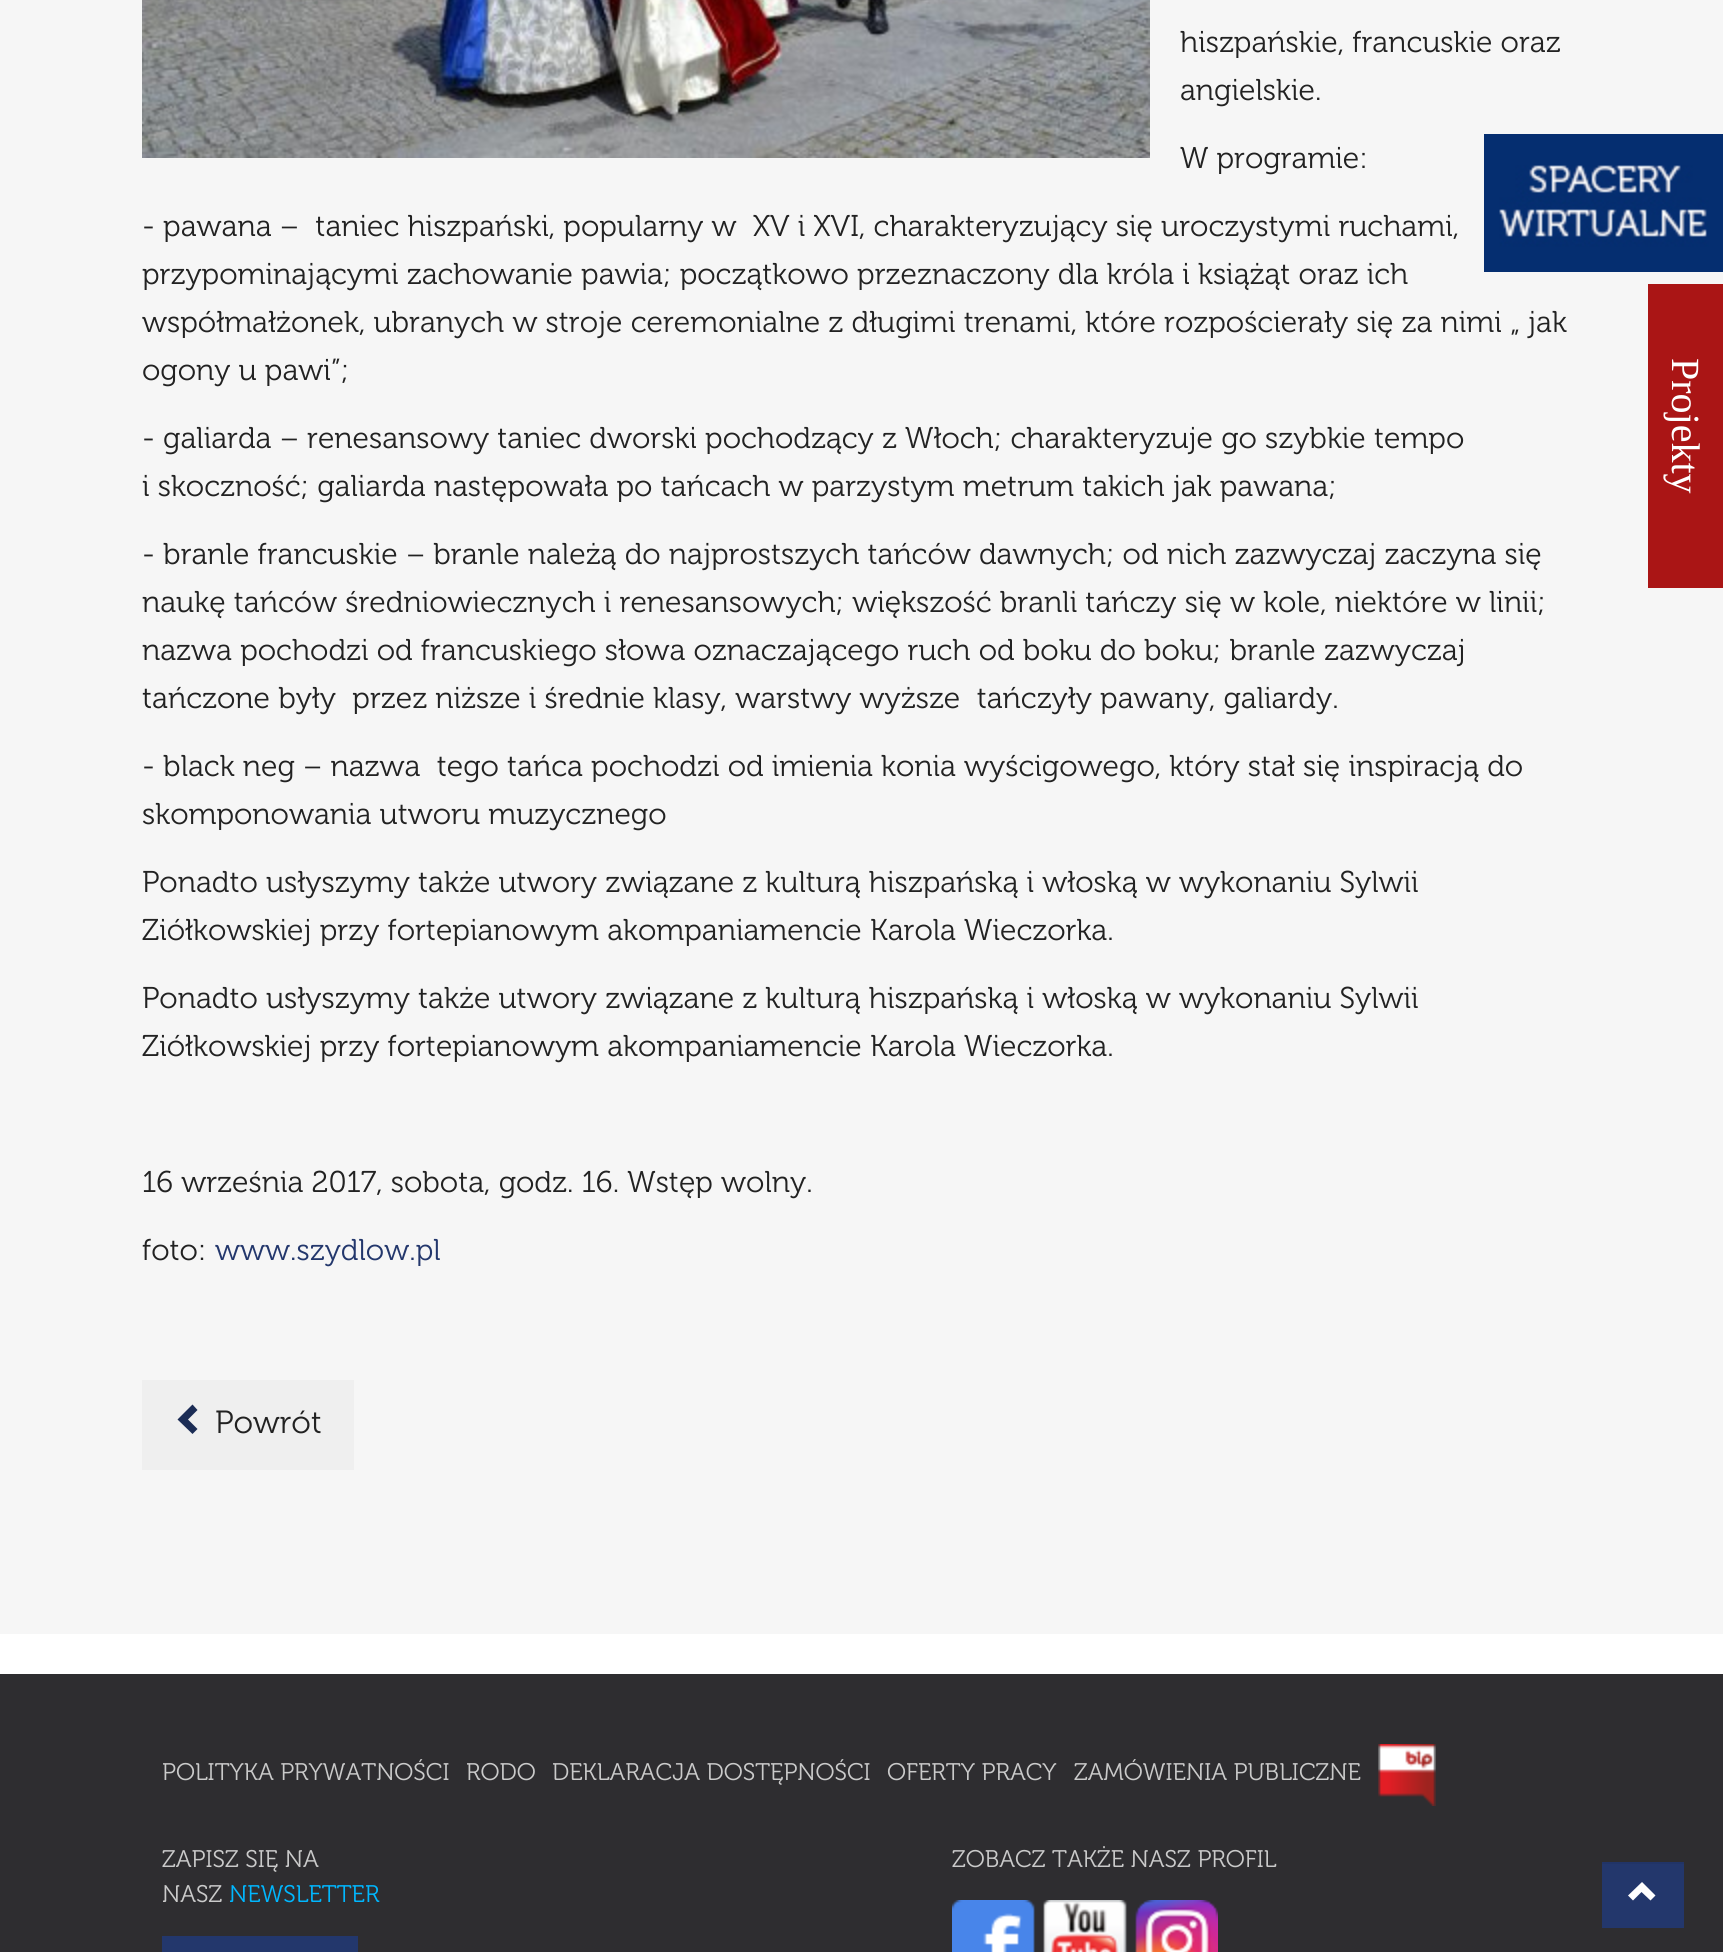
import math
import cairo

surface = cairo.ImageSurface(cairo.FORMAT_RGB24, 1723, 1952)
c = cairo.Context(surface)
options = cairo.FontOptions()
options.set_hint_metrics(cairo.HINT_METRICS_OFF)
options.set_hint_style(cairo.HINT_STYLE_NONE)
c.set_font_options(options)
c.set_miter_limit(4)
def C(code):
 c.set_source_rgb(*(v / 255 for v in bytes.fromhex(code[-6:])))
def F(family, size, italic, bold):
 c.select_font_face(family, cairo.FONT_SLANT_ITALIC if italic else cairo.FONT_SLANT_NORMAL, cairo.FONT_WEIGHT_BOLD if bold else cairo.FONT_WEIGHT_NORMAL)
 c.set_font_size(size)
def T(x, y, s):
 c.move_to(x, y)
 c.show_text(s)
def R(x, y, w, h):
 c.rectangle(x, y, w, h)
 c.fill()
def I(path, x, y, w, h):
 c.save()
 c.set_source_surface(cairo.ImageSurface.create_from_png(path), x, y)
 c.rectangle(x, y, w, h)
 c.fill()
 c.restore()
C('ffffff')
c.paint()
C('f6f6f6')
R(0,0,1723,1634)
I('1.png',142,0,1008,158)
F('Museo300',30,0,0)
C('222222')
T(1180,52,'hiszpańskie, francuskie oraz')
T(1180,100,'angielskie.')
T(1180,168,'W programie:')
T(142,236,'- pawana –  taniec hiszpański, popularny w  XV i XVI, charakteryzujący się uroczystymi ruchami,')
T(142,284,'przypominającymi zachowanie pawia; początkowo przeznaczony dla króla i książąt oraz ich')
T(142,332,'współmałżonek, ubranych w stroje ceremonialne z długimi trenami, które rozpościerały się za nimi „ jak')
T(142,380,'ogony u pawi”;')
T(142,448,'- galiarda – renesansowy taniec dworski pochodzący z Włoch; charakteryzuje go szybkie tempo')
T(142,496,'i skoczność; galiarda następowała po tańcach w parzystym metrum takich jak pawana;')
T(142,564,'- branle francuskie – branle należą do najprostszych tańców dawnych; od nich zazwyczaj zaczyna się')
T(142,612,'naukę tańców średniowiecznych i renesansowych; większość branli tańczy się w kole, niektóre w linii;')
T(142,660,'nazwa pochodzi od francuskiego słowa oznaczającego ruch od boku do boku; branle zazwyczaj')
T(142,708,'tańczone były  przez niższe i średnie klasy, warstwy wyższe  tańczyły pawany, galiardy.')
T(142,776,'- black neg – nazwa  tego tańca pochodzi od imienia konia wyścigowego, który stał się inspiracją do')
T(142,824,'skomponowania utworu muzycznego')
T(142,892,'Ponadto usłyszymy także utwory związane z kulturą hiszpańską i włoską w wykonaniu Sylwii')
T(142,940,'Ziółkowskiej przy fortepianowym akompaniamencie Karola Wieczorka.')
T(142,1008,'Ponadto usłyszymy także utwory związane z kulturą hiszpańską i włoską w wykonaniu Sylwii')
T(142,1056,'Ziółkowskiej przy fortepianowym akompaniamencie Karola Wieczorka.')
T(142,1192,'16 września 2017, sobota, godz. 16. Wstęp wolny.')
T(142,1260,'foto:')
C('23376c')
T(215,1260,'www.szydlow.pl')
C('efefef')
R(142,1380,212,90)
C('1b2c55')
c.new_path()
c.move_to(197.5,1410)
c.line_to(188,1419.5)
c.line_to(197.5,1429)
c.line_to(192.5,1434)
c.line_to(177.5,1419.5)
c.line_to(192.5,1404.5)
c.close_path()
c.fill()
F('Museo300',32,0,0)
C('222222')
T(215,1433,'Powrót')
I('2.png',1484,134,239,138)
C('aa1515')
R(1648,284,75,304)
F('Liberation Serif',40,0,0)
C('ffffff')
c.save()
c.translate(1672,358)
c.rotate(90 * math.pi / 180)
T(0,0,'Projekty')
c.restore()
C('2e2d30')
R(0,1674,1723,278)
F('Museo300',24,0,0)
C('cacaca')
T(162,1780,'POLITYKA PRYWATNOŚCI')
T(466,1780,'RODO')
T(552,1780,'DEKLARACJA DOSTĘPNOŚCI')
T(887,1780,'OFERTY PRACY')
T(1074,1780,'ZAMÓWIENIA PUBLICZNE')
I('3.png',1378,1744,58,62)
T(162,1867,'ZAPISZ SIĘ NA')
T(162,1902,'NASZ')
C('00b7ff')
T(229,1902,'NEWSLETTER')
C('23376c')
R(162,1936,196,16)
C('cacaca')
T(952,1867,'ZOBACZ TAKŻE NASZ PROFIL')
I('4.png',952,1900,266,52)
C('23376c')
R(1602,1864,82,64)
C('213467')
R(1602,1862,82,2)
C('ffffff')
c.new_path()
c.move_to(1655.5,1895.5)
c.line_to(1650.5,1900.5)
c.line_to(1641.5,1892)
c.line_to(1633,1900.5)
c.line_to(1628,1895.5)
c.line_to(1642,1882)
c.close_path()
c.fill()
surface.write_to_png('o.png')
